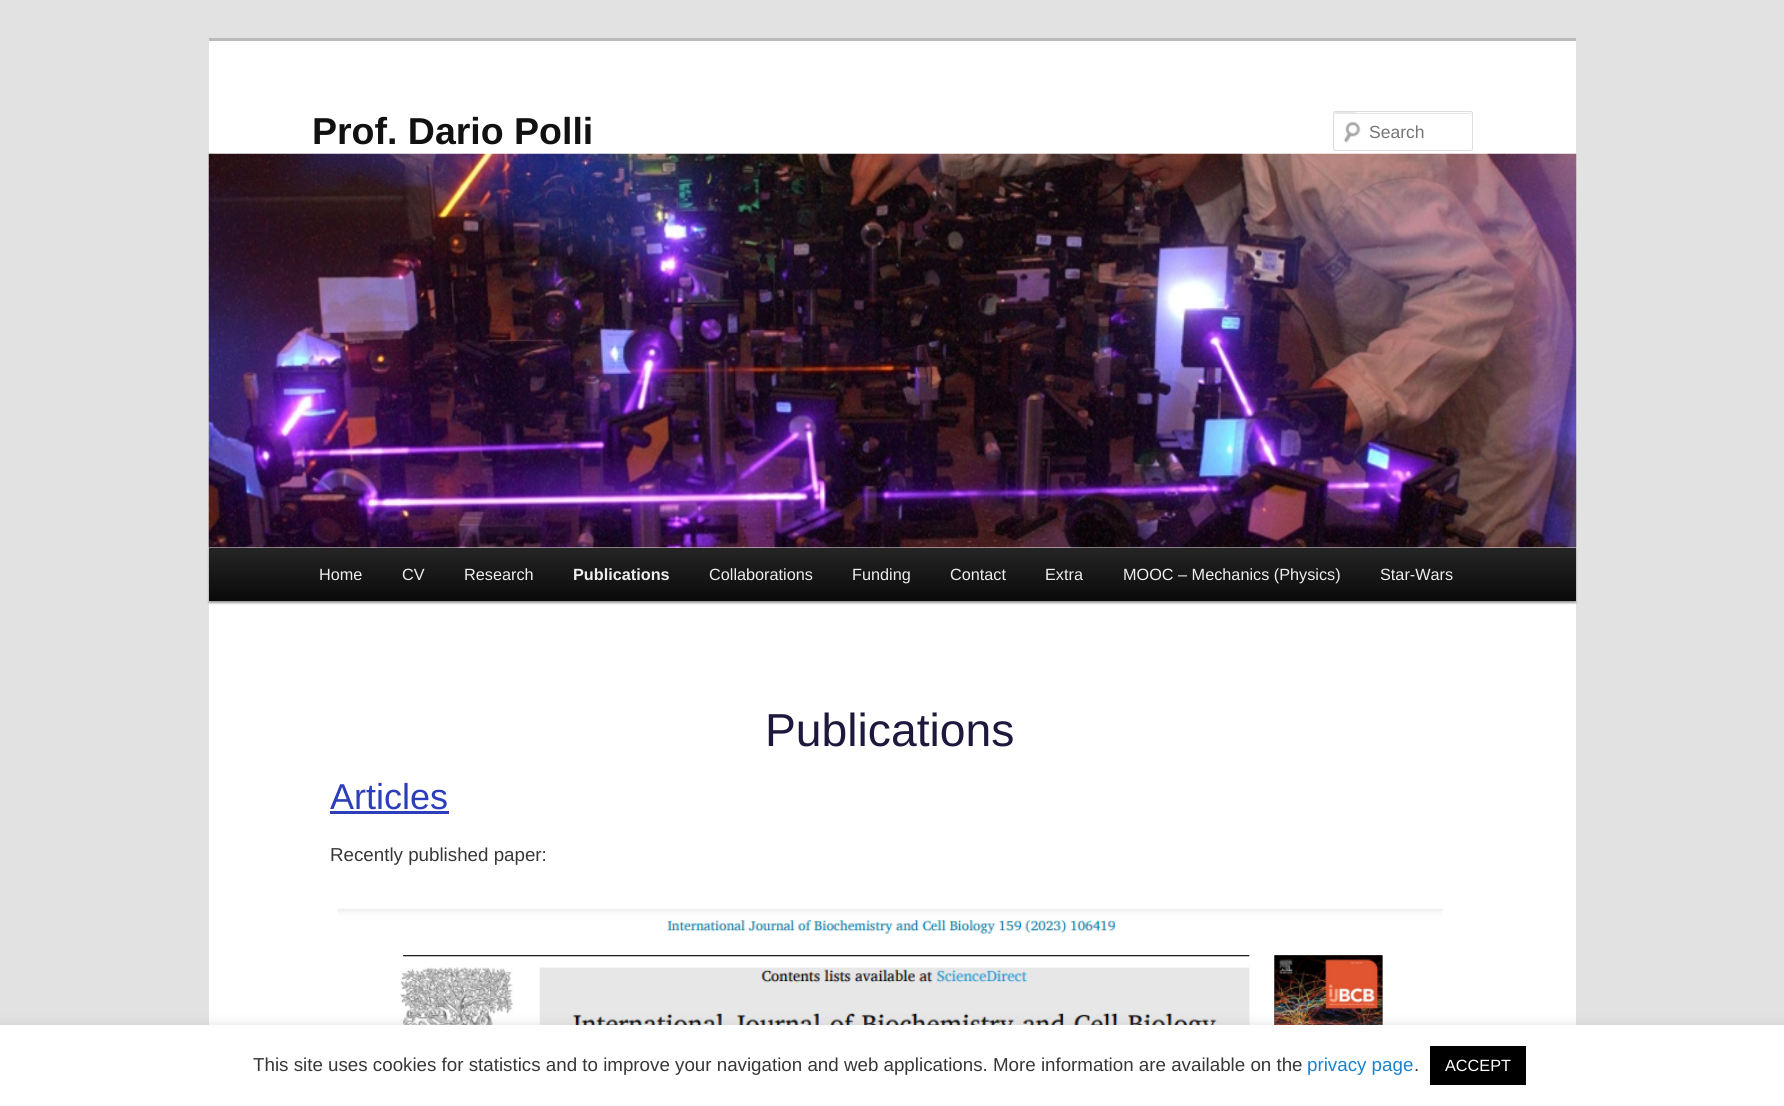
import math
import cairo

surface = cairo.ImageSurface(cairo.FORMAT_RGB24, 1784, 1106)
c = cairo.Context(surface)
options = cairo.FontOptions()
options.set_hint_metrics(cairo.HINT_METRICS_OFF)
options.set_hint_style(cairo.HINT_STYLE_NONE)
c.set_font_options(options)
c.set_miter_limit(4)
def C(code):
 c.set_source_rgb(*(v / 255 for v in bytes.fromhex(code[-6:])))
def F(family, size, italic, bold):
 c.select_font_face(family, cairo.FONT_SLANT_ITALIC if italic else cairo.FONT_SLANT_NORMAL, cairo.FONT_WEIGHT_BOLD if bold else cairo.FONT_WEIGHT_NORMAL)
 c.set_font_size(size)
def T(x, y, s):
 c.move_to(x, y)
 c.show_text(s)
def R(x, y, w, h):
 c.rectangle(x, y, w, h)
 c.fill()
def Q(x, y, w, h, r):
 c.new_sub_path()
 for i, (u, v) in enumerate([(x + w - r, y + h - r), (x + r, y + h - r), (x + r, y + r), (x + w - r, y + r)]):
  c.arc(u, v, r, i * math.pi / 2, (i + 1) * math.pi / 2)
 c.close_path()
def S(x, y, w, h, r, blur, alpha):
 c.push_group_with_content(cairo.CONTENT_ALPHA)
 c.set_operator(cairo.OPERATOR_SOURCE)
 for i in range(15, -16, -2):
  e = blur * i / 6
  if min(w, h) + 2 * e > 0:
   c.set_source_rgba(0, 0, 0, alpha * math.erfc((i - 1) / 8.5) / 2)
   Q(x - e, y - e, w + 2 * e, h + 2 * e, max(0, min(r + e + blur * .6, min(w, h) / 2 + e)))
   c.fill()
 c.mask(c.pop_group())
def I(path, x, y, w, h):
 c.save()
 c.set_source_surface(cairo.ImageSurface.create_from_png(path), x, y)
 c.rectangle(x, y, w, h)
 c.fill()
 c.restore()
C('e2e2e2')
c.paint()
C('ffffff')
R(209,41,1367,984)
C('bbbbbb')
R(209,38,1367,3)
F('Liberation Sans',37.5,0,1)
C('111111')
T(312,144,'Prof. Dario Polli')
I('1.png',1343,121,18,22)
C('e6e6e6')
c.new_path()
c.move_to(1335,114)
c.line_to(1470,114)
c.curve_to(1471,114,1471,114,1471,115)
c.line_to(1471,113)
c.line_to(1358,113)
c.curve_to(1357,113,1334,107,1334,115)
c.curve_to(1334,114,1334,114,1335,114)
c.close_path()
c.fill()
Q(1333.5,111.5,139,39,2)
C('dddddd')
c.set_line_width(1)
c.stroke()
F('Liberation Sans',17.5,0,0)
C('757575')
T(1369,138,'Search')
C('000000')
S(209,549,1367,54,0,1,.4)
I('2.png',208,153,1369,395)
gradient = cairo.LinearGradient(893,547,893,601)
gradient.add_color_stop_rgba(0,0.145,0.145,0.145,1)
gradient.add_color_stop_rgba(1,0.039,0.039,0.039,1)
c.set_source(gradient)
R(209,548,1367,53)
F('Liberation Sans',16.25,0,0)
C('eeeeee')
T(319,580,'Home')
T(402,580,'CV')
T(464,580,'Research')
F('Liberation Sans',16.25,0,1)
T(573,580,'Publications')
F('Liberation Sans',16.25,0,0)
T(709,580,'Collaborations')
T(852,580,'Funding')
T(950,580,'Contact')
T(1045,580,'Extra')
T(1123,580,'MOOC – Mechanics (Physics)')
T(1380,580,'Star-Wars')
F('Liberation Sans',46.25,0,0)
C('1f183d')
T(765,746,'Publications')
F('Liberation Sans',36,0,0)
C('2c3ebc')
T(330,809,'Articles')
R(330,811,119,3)
F('Liberation Sans',18.75,0,0)
C('373737')
T(330,861,'Recently published paper:')
I('3.png',337,908,1106,117)
C('acabab')
S(0,1024,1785,81,0,6,.3)
C('ffffff')
R(0,1025,1784,81)
C('373737')
T(253,1071,'This site uses cookies for statistics and to improve your navigation and web applications. More information are available on the')
C('1982d1')
T(1307,1071,'privacy page')
C('373737')
T(1414,1071,'.')
C('000000')
R(1430,1046,96,39)
F('Liberation Sans',16.25,0,0)
C('ffffff')
T(1445,1071,'ACCEPT')
surface.write_to_png('o.png')
